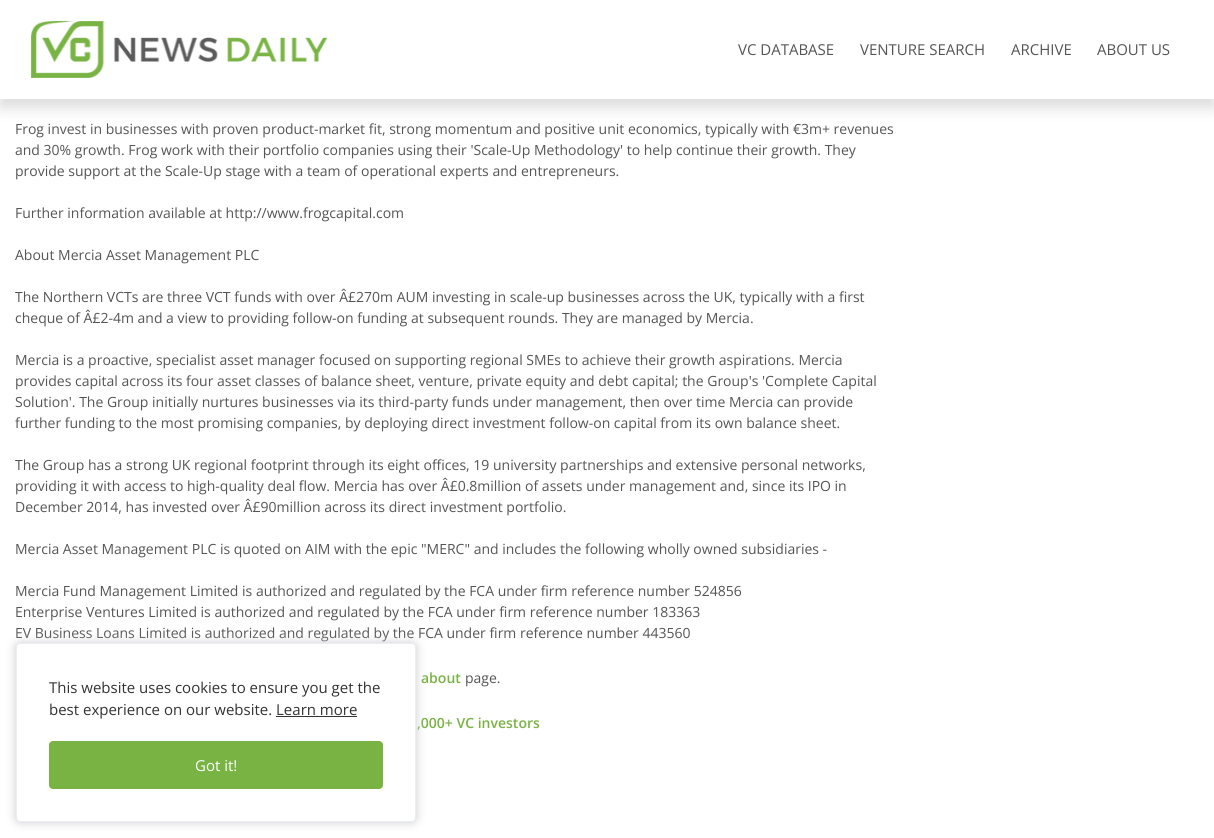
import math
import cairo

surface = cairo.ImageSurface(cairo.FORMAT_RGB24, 1214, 838)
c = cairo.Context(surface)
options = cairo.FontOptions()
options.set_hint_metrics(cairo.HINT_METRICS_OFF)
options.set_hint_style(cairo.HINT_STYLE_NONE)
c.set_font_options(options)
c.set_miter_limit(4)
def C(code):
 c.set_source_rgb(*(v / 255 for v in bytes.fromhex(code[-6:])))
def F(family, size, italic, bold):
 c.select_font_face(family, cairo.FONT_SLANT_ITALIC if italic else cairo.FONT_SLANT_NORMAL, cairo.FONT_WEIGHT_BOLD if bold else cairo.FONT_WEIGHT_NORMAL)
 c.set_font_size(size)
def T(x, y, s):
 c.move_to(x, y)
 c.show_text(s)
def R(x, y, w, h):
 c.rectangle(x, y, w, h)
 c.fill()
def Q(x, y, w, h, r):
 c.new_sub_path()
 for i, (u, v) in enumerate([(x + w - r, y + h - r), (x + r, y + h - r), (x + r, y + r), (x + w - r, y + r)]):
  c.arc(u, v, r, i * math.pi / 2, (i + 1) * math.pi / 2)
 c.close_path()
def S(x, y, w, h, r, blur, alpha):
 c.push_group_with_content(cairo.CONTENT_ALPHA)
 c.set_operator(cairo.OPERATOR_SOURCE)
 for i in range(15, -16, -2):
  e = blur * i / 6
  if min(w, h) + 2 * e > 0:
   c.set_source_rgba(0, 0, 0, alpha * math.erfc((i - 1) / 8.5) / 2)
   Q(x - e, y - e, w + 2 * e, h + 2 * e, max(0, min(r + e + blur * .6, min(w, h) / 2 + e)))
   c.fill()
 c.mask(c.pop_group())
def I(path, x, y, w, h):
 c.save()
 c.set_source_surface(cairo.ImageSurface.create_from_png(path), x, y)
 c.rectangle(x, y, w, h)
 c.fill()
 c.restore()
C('ffffff')
c.paint()
C('000000')
S(0,8,1214,99,0,8,.15)
C('ffffff')
R(0,0,1214,99)
I('1.png',31,21,296,57)
F('Open Sans',15,0,0)
C('555555')
T(738,55,'VC DATABASE')
T(860,55,'VENTURE SEARCH')
T(1011,55,'ARCHIVE')
T(1097,55,'ABOUT US')
F('Open Sans',14,0,0)
T(15,134,'Frog invest in businesses with proven product-market fit, strong momentum and positive unit economics, typically with €3m+ revenues')
T(15,155,'and 30% growth. Frog work with their portfolio companies using their \'Scale-Up Methodology\' to help continue their growth. They')
T(15,176,'provide support at the Scale-Up stage with a team of operational experts and entrepreneurs.')
T(15,218,'Further information available at http://www.frogcapital.com')
T(15,260,'About Mercia Asset Management PLC')
T(15,302,'The Northern VCTs are three VCT funds with over Â£270m AUM investing in scale-up businesses across the UK, typically with a first')
T(15,323,'cheque of Â£2-4m and a view to providing follow-on funding at subsequent rounds. They are managed by Mercia.')
T(15,365,'Mercia is a proactive, specialist asset manager focused on supporting regional SMEs to achieve their growth aspirations. Mercia')
T(15,386,'provides capital across its four asset classes of balance sheet, venture, private equity and debt capital; the Group\'s \'Complete Capital')
T(15,407,'Solution\'. The Group initially nurtures businesses via its third-party funds under management, then over time Mercia can provide')
T(15,428,'further funding to the most promising companies, by deploying direct investment follow-on capital from its own balance sheet.')
T(15,470,'The Group has a strong UK regional footprint through its eight offices, 19 university partnerships and extensive personal networks,')
T(15,491,'providing it with access to high-quality deal flow. Mercia has over Â£0.8million of assets under management and, since its IPO in')
T(15,512,'December 2014, has invested over Â£90million across its direct investment portfolio.')
T(15,554,'Mercia Asset Management PLC is quoted on AIM with the epic "MERC" and includes the following wholly owned subsidiaries -')
T(15,596,'Mercia Fund Management Limited is authorized and regulated by the FCA under firm reference number 524856')
T(15,617,'Enterprise Ventures Limited is authorized and regulated by the FCA under firm reference number 183363')
T(15,638,'EV Business Loans Limited is authorized and regulated by the FCA under firm reference number 443560')
F('Open Sans SemiBold',14,0,0)
C('78b344')
T(421,683,'about')
F('Open Sans',14,0,0)
C('555555')
T(465,683,'page.')
F('Open Sans SemiBold',14,0,0)
C('78b344')
T(417,728,',000+ VC investors')
C('cccccc')
S(16,643,400,179,4,5,1)
C('ffffff')
Q(16.5,643.5,399,178,3.5)
c.fill_preserve()
C('eaedf1')
c.set_line_width(1)
c.stroke()
F('Open Sans',15,0,0)
C('333333')
T(49,693,'This website uses cookies to ensure you get the')
T(49,715,'best experience on our website. Learn more')
R(276,716,81,1)
C('78b344')
Q(49.5,741.5,333,47,3.5)
c.fill_preserve()
c.stroke()
C('ffffff')
T(195,771,'Got it!')
surface.write_to_png('o.png')
